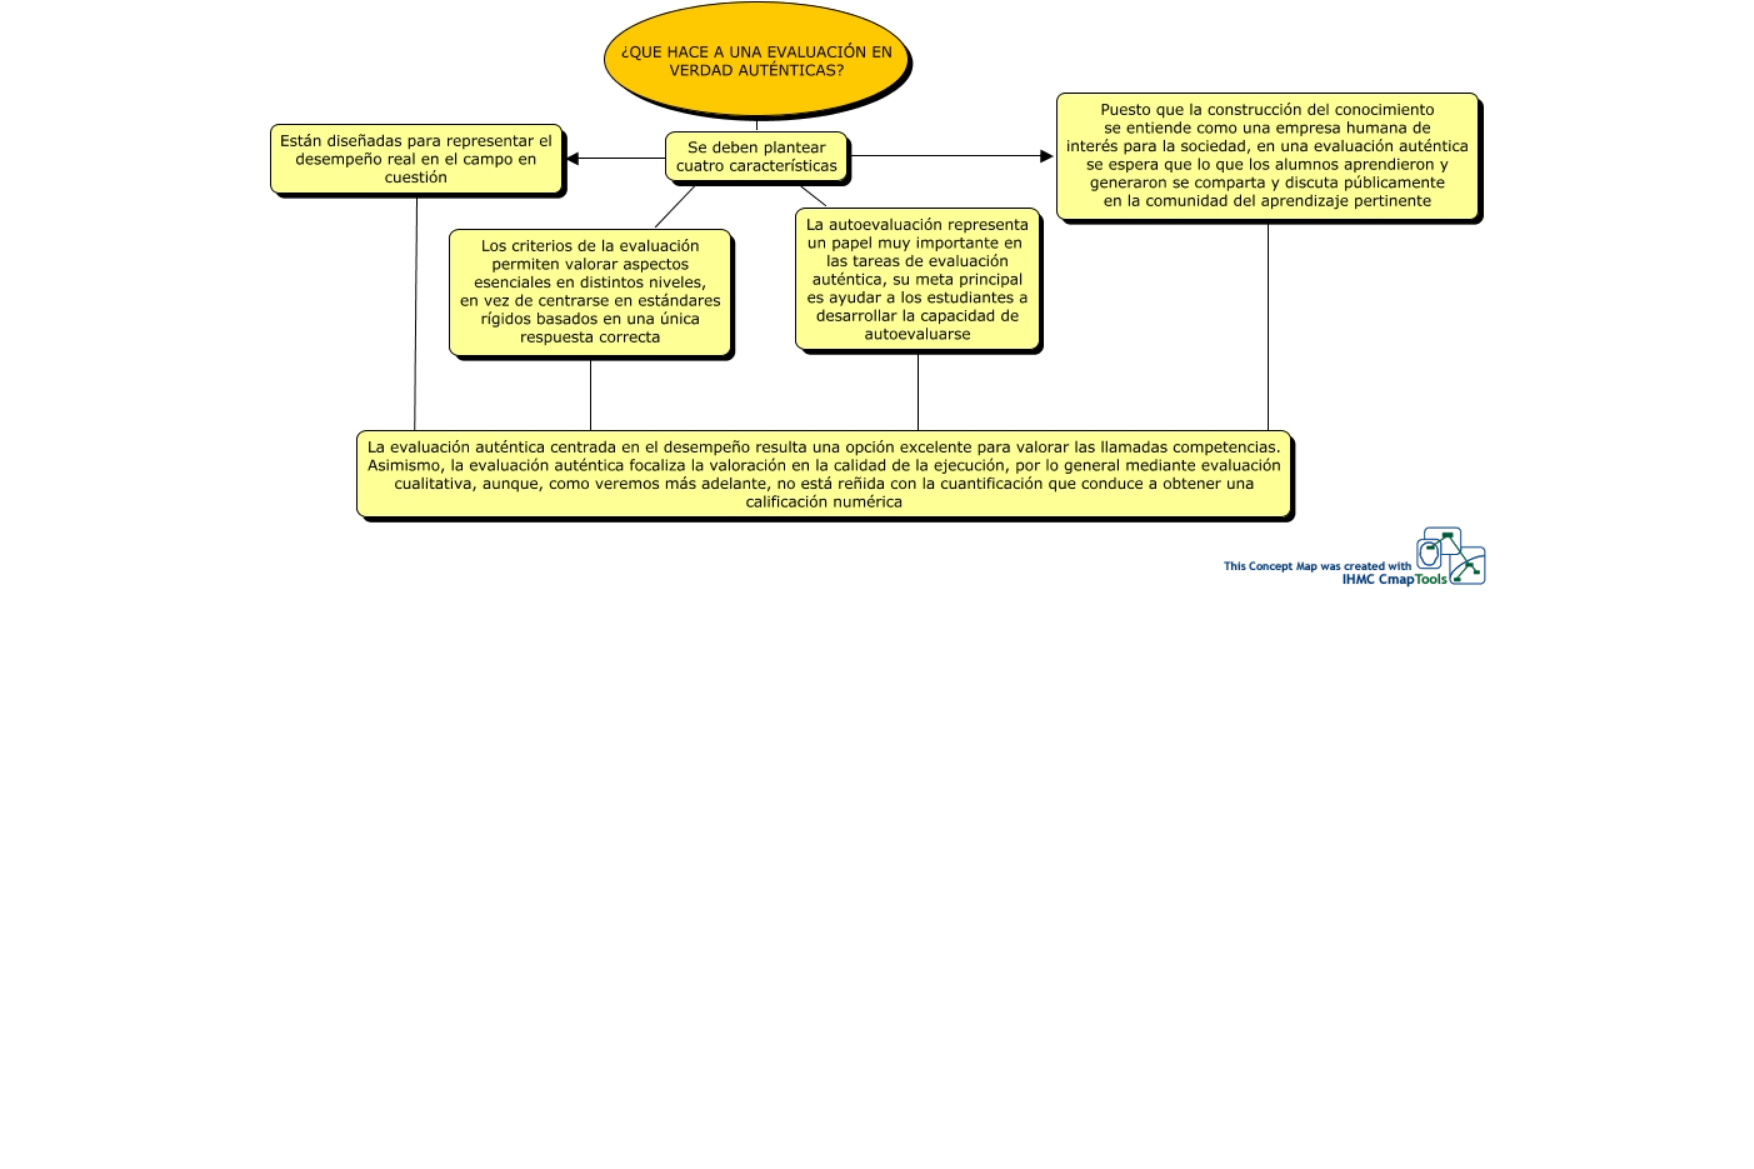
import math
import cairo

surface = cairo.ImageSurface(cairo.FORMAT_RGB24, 1754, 1169)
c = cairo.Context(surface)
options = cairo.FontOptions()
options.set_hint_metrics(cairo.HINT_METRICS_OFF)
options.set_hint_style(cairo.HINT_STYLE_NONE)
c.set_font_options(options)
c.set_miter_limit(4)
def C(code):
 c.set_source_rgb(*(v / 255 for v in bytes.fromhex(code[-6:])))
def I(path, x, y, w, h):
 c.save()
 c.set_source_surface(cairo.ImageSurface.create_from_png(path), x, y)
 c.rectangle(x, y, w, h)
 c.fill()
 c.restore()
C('ffffff')
c.paint()
I('1.png',269,0,1215,523)
I('2.png',1223,526,264,62)
surface.write_to_png('o.png')
